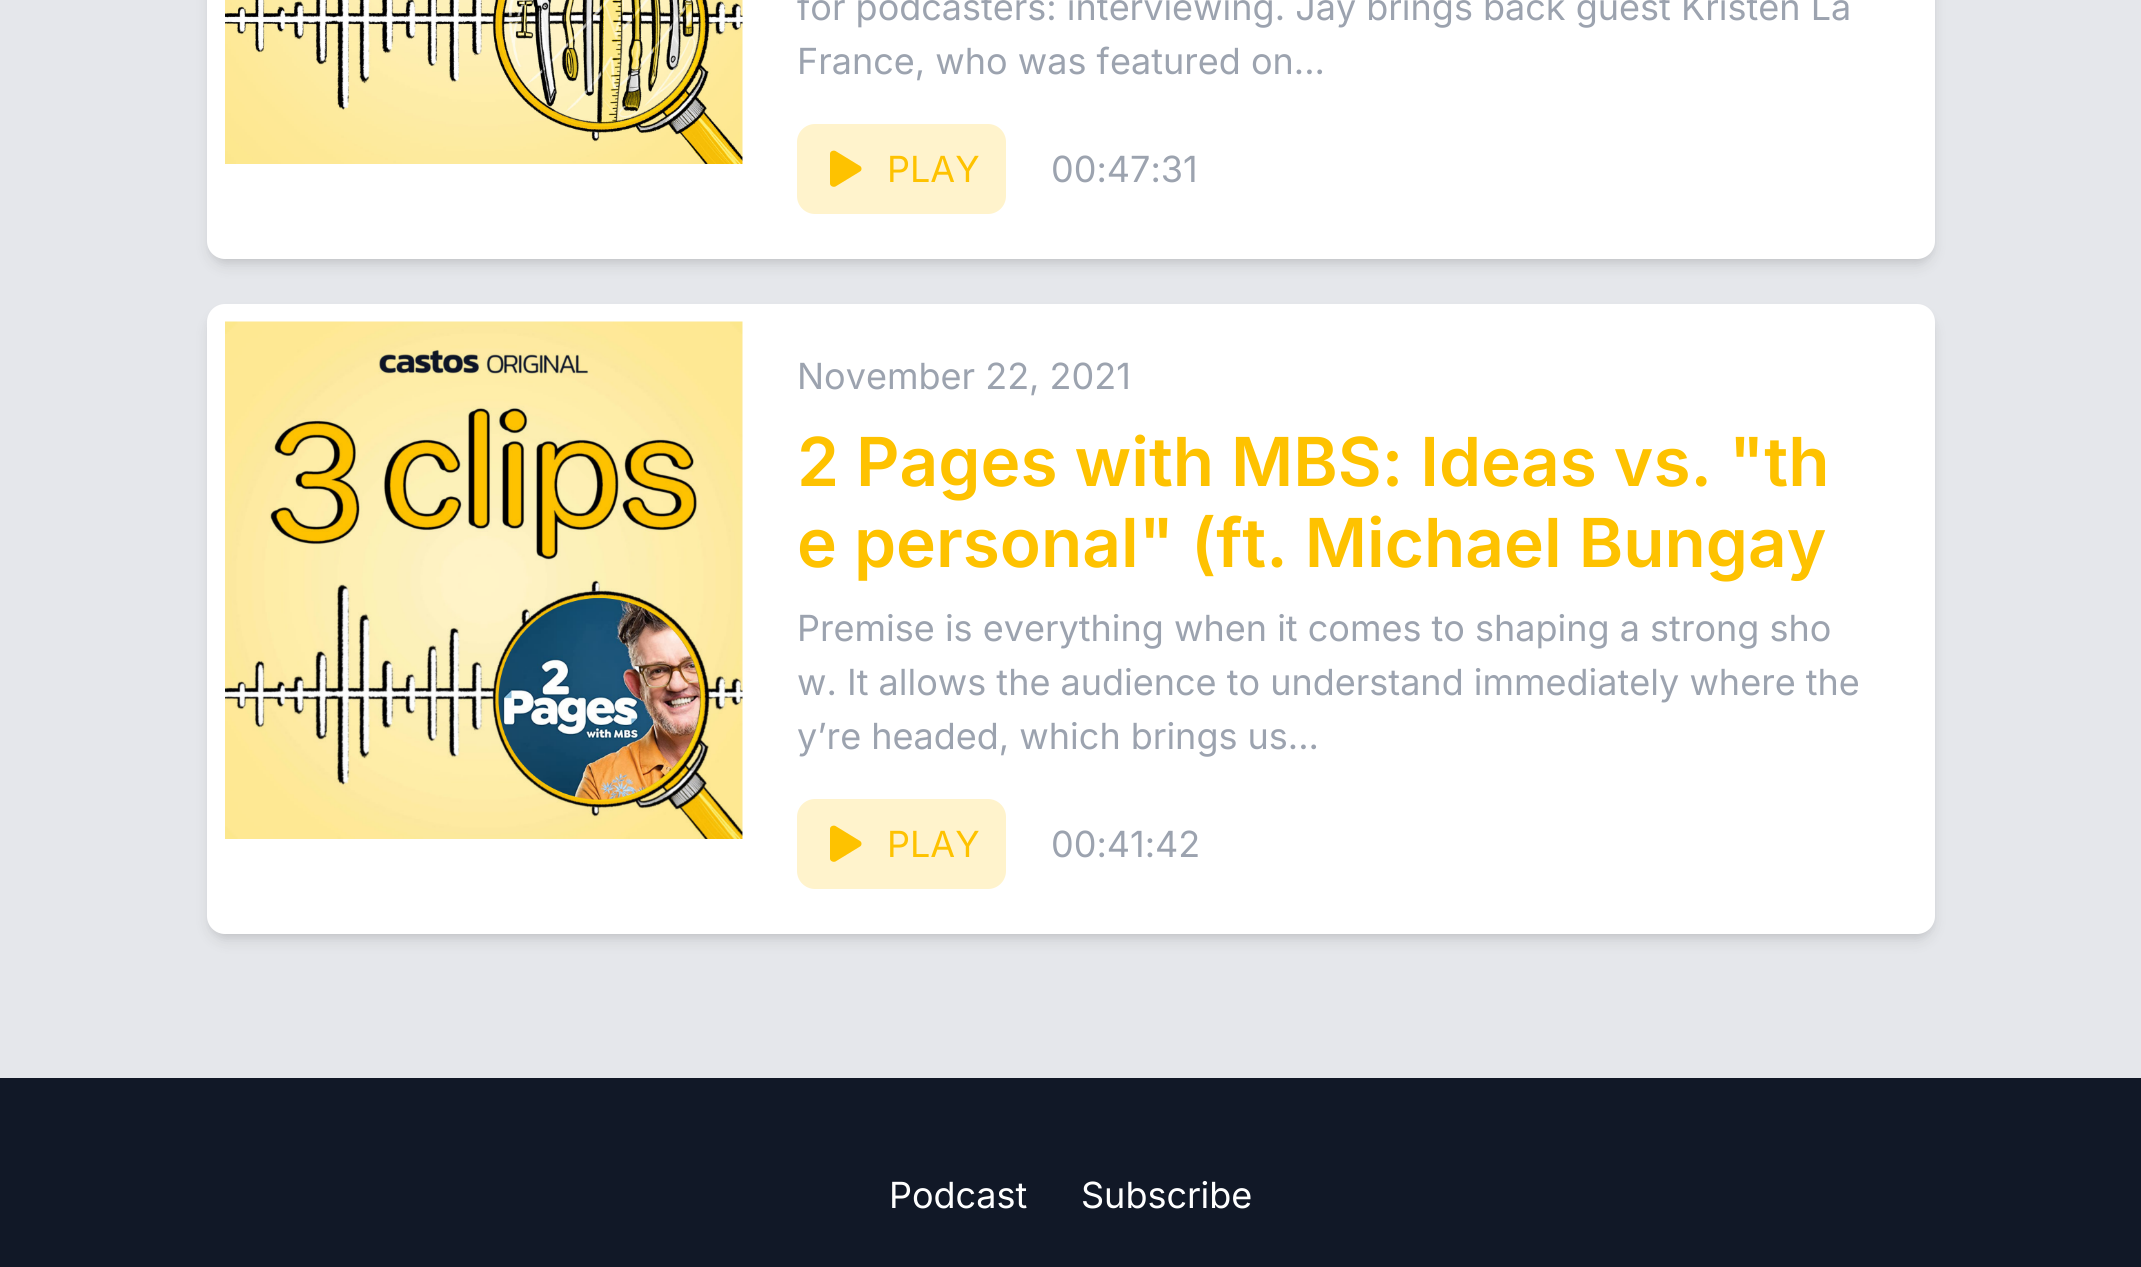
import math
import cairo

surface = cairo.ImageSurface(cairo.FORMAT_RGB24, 2141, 1267)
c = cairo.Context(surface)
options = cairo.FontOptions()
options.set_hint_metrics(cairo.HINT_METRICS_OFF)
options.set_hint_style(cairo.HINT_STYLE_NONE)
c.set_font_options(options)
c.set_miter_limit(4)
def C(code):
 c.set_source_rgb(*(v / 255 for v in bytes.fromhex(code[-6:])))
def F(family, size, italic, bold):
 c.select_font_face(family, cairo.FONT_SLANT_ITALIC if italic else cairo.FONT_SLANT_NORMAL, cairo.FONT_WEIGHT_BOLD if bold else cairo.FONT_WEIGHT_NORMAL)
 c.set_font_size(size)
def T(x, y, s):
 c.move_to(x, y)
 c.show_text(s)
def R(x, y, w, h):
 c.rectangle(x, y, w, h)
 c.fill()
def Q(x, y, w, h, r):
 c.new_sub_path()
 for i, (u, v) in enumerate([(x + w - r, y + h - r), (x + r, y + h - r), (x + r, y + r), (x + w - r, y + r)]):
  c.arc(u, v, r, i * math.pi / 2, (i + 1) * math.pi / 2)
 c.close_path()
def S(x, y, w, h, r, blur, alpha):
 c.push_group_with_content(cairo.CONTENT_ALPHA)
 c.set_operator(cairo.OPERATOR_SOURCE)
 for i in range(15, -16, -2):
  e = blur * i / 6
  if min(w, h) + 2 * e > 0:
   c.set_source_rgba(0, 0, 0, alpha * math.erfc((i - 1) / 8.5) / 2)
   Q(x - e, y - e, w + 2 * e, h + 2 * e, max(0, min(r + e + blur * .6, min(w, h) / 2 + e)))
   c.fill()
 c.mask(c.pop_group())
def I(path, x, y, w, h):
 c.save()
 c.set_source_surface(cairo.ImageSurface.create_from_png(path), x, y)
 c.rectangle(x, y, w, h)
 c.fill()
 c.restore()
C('e5e7eb')
c.paint()
C('000000')
S(212,-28,1719,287,14,4.5,.1)
S(209,-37,1724,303,16,7,.1)
C('ffffff')
Q(207,-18,1728,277,18)
c.fill()
I('1.png',225,0,518,164)
c.save()
c.rectangle(797,0,1066,88)
c.clip()
F('Inter',36,0,0)
C('9ca3af')
T(797,20,'for podcasters: interviewing. Jay brings back guest Kristen La')
c.restore()
F('Inter',36,0,0)
C('9ca3af')
T(797,74,'France, who was featured on...')
C('fff3cc')
Q(797,124,209,90,18)
c.fill()
C('fec200')
c.new_path()
c.move_to(860,166)
c.line_to(835.5,151)
c.curve_to(833.5,150,830,151,830,154)
c.line_to(830,183.5)
c.curve_to(830,186,833,187.5,835.5,186.5)
c.line_to(860,171.5)
c.curve_to(862,170.5,862,167,860,166)
c.close_path()
c.fill()
T(887,182,'PLAY')
C('9ca3af')
T(1051,182,'00:47:31')
C('000000')
S(212,313,1719,621,14,4.5,.1)
S(209,315,1724,626,16,7,.1)
C('ffffff')
Q(207,304,1728,630,18)
c.fill()
I('2.png',225,321,518,518)
C('9ca3af')
T(797,389,'November 22, 2021')
F('Inter SemiBold',67.5,0,0)
C('fec200')
T(797,486,'2 Pages with MBS: Ideas vs. "th')
T(797,567,'e personal" (ft. Michael Bungay')
F('Inter',36,0,0)
C('9ca3af')
T(797,641,'Premise is everything when it comes to shaping a strong sho')
T(797,695,'w. It allows the audience to understand immediately where the')
T(797,749,'y’re headed, which brings us...')
C('fff3cc')
Q(797,799,209,90,18)
c.fill()
C('fec200')
c.new_path()
c.move_to(860,841)
c.line_to(835.5,826)
c.curve_to(833.5,825,830,826,830,829)
c.line_to(830,858.5)
c.curve_to(830,861,833,862.5,835.5,861.5)
c.line_to(860,846.5)
c.curve_to(862,845.5,862,842,860,841)
c.close_path()
c.fill()
T(887,857,'PLAY')
C('9ca3af')
T(1051,857,'00:41:42')
C('111827')
R(0,1078,2141,189)
C('ffffff')
T(889,1208,'Podcast')
T(1081,1208,'Subscribe')
surface.write_to_png('o.png')
